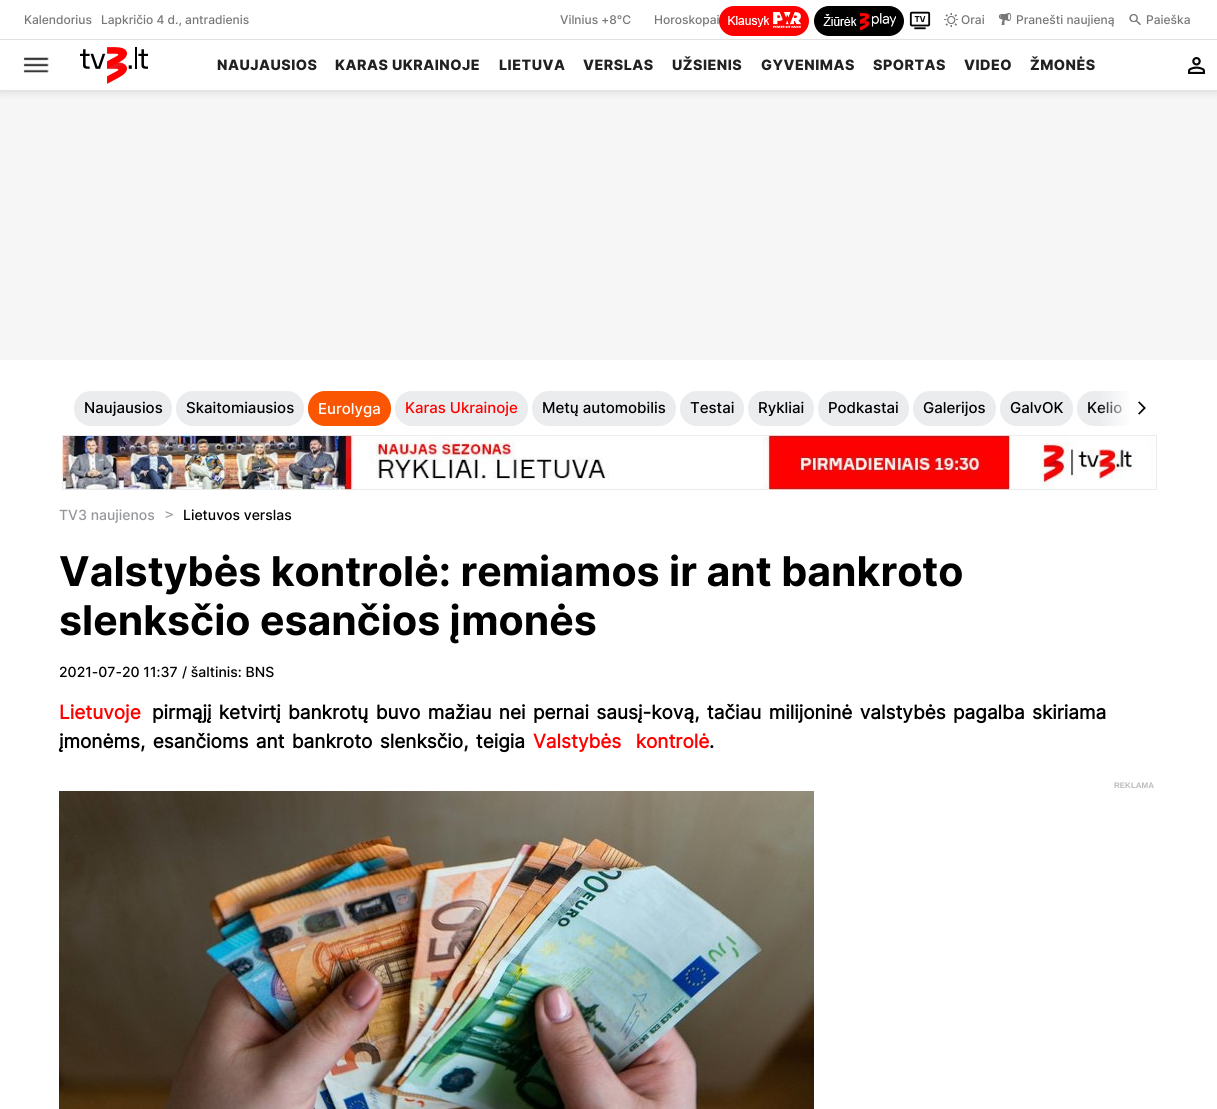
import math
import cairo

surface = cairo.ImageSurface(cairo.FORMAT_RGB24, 1217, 1109)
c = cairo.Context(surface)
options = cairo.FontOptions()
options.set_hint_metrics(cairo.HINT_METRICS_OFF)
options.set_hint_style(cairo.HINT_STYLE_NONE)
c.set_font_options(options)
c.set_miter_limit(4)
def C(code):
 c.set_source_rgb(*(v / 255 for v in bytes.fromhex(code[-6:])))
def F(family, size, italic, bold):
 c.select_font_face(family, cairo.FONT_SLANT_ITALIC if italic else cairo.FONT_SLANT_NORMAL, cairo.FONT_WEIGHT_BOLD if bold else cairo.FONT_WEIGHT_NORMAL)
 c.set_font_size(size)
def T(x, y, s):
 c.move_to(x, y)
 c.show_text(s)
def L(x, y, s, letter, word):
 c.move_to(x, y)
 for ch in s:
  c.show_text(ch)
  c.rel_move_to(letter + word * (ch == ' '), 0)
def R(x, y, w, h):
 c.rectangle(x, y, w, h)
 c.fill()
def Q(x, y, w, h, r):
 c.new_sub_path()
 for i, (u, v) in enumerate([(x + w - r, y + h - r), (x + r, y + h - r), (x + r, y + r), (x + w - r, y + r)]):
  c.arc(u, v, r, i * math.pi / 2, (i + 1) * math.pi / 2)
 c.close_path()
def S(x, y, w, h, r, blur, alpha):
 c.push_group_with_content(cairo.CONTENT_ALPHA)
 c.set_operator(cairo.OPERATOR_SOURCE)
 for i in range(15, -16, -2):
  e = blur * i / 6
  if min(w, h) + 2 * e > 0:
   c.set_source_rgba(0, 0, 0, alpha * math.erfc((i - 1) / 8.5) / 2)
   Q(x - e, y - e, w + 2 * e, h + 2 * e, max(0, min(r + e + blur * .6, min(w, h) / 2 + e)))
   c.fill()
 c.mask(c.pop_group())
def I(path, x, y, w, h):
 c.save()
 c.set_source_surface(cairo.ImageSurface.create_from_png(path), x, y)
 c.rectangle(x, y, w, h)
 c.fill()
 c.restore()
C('ffffff')
c.paint()
C('f6f6f6')
R(0,90,1217,270)
c.save()
c.rectangle(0,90,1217,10)
c.clip()
C('d3d3d3')
S(0,1,1217,90,0,4.5,1)
c.restore()
C('e0e0e0')
R(0,39,1217,1)
F('Inter Medium',12,0,0)
C('777777')
T(24,24,'Kalendorius')
T(101,24,'Lapkričio 4 d., antradienis')
T(560,24,'Vilnius +8°C')
T(654,24,'Horoskopai')
C('ff0000')
Q(719,6,90,30,15)
c.fill()
I('1.png',728,16,42,11)
I('2.png',773,12,28,16)
C('000000')
Q(814,6,90,30,15)
c.fill()
I('3.png',823,14,34,12)
I('4.png',860,13,36,17)
I('5.png',909,11,22,19)
I('6.png',944,13,14,14)
C('777777')
T(961,24,'Orai')
I('7.png',999,13,13,12)
T(1016,24,'Pranešti naujieną')
I('8.png',1129,14,12,11)
T(1146,24,'Paieška')
I('9.png',23,57,26,16)
I('10.png',80,47,68,37)
F('Inter ExtraBold',14.25,0,0)
C('212121')
L(217,70,'NAUJAUSIOS',.5,0)
L(335,70,'KARAS UKRAINOJE',.5,0)
L(499,70,'LIETUVA',.5,0)
L(583,70,'VERSLAS',.5,0)
L(672,70,'UŽSIENIS',.5,0)
L(761,70,'GYVENIMAS',.5,0)
L(873,70,'SPORTAS',.5,0)
L(964,70,'VIDEO',.5,0)
L(1030,70,'ŽMONĖS',.5,0)
I('11.png',1188,57,17,17)
C('eaecee')
Q(74,391,98,35,17)
c.fill()
F('Inter Medium',15,0,0)
C('000000')
T(84,413,'Naujausios')
C('eaecee')
Q(176,391,128,35,17)
c.fill()
C('000000')
T(186,413,'Skaitomiausios')
C('fa5500')
Q(308,391,83,35,17)
c.fill()
C('ffffff')
T(318,414,'Eurolyga')
C('eaecee')
Q(395,391,133,35,17)
c.fill()
C('ff0000')
T(405,413,'Karas Ukrainoje')
C('eaecee')
Q(532,391,144,35,17)
c.fill()
C('000000')
T(542,413,'Metų automobilis')
C('eaecee')
Q(680,391,64,35,17)
c.fill()
C('000000')
T(690,413,'Testai')
C('eaecee')
Q(748,391,66,35,17)
c.fill()
C('000000')
T(758,413,'Rykliai')
C('eaecee')
Q(818,391,91,35,17)
c.fill()
C('000000')
T(828,413,'Podkastai')
C('eaecee')
Q(913,391,83,35,17)
c.fill()
C('000000')
T(923,413,'Galerijos')
C('eaecee')
Q(1000,391,73,35,17)
c.fill()
C('000000')
T(1010,413,'GalvOK')
C('eaecee')
c.new_path()
c.move_to(1094,391)
c.line_to(1132,391)
c.line_to(1132,426)
c.line_to(1094,426)
c.curve_to(1084.5,426,1077,418.5,1077,409)
c.line_to(1077,408)
c.curve_to(1077,398.5,1084.5,391,1094,391)
c.close_path()
c.fill()
C('000000')
T(1087,413,'Kelio')
I('12.png',1138,401,8,14)
gradient = cairo.LinearGradient(1099,409,1132,409)
gradient.add_color_stop_rgba(0,1,1,1,0)
gradient.add_color_stop_rgba(1,1,1,1,1)
c.set_source(gradient)
R(1100,391,32,35)
I('13.png',62,435,1095,55)
F('Inter Medium',14,0,0)
C('95979b')
T(59,520,'TV3 naujienos')
F('DejaVu Sans Mono',14,0,0)
T(165,519,'>')
F('Inter Medium',14,0,0)
C('000000')
T(183,520,'Lietuvos verslas')
F('Inter',41,0,1)
T(59,586,'Valstybės kontrolė: remiamos ir ant bankroto')
T(59,635,'slenksčio esančios įmonės')
F('Inter Medium',14,0,0)
T(59,677,'2021-07-20 11:37')
T(182,677,'/ šaltinis: BNS')
F('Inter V',19,0,1)
C('ff0000')
T(59,719,'Lietuvoje')
C('000000')
L(152,719,'pirmąjį ketvirtį bankrotų buvo mažiau nei pernai sausį-kovą, tačiau milijoninė valstybės pagalba skiriama',0,2)
L(59,748,'įmonėms, esančioms ant bankroto slenksčio, teigia',0,2)
C('ff0000')
L(533,748,'Valstybės kontrolė',0,9)
C('000000')
T(709,748,'.')
F('Liberation Sans',8,0,1)
C('bababa')
T(1114,788,'REKLAMA')
I('14.png',59,791,755,318)
surface.write_to_png('o.png')
